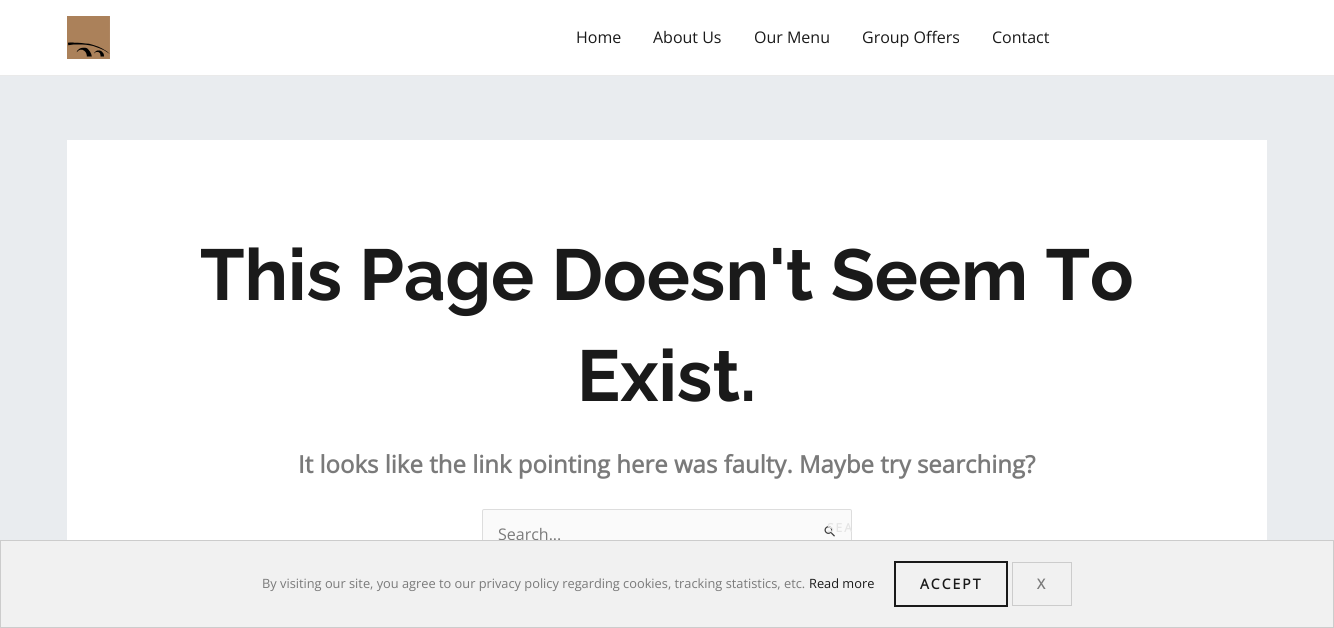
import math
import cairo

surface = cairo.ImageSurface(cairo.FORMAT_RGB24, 1334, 628)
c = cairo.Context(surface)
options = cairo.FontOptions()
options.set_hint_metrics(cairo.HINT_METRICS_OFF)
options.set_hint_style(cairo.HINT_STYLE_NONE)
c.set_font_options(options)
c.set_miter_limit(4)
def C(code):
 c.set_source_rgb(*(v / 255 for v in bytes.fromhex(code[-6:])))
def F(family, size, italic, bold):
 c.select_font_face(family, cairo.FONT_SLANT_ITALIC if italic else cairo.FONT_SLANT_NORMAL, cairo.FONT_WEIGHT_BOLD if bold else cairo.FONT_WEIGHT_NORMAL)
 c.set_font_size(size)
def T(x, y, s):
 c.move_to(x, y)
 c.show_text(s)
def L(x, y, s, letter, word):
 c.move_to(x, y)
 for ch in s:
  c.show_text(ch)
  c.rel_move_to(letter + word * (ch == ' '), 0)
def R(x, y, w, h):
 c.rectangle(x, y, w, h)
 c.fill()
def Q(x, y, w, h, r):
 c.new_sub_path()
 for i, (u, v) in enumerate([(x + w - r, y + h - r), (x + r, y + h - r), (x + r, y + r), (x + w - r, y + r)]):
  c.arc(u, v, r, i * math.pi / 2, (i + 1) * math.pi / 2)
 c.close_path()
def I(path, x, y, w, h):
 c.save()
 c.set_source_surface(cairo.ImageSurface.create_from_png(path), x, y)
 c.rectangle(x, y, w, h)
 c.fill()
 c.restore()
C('e9ecef')
c.paint()
C('ffffff')
R(0,0,1334,75)
C('eaeaea')
R(0,75,1334,1)
I('1.png',67,16,43,43)
F('Open Sans',16,0,0)
C('1a1a1a')
T(576,43,'Home')
T(653,43,'About Us')
T(754,43,'Our Menu')
T(862,43,'Group Offers')
T(992,43,'Contact')
C('ffffff')
R(67,140,1200,400)
F('Raleway Thin',72,0,0)
C('1a1a1a')
T(200,300,'This Page Doesn\'t Seem To')
T(577,401,'Exist.')
F('Open Sans',24,0,1)
C('7a7a7a')
T(298,473,'It looks like the link pointing here was faulty. Maybe try searching?')
C('fafafa')
Q(482.5,509.5,369,50,1.5)
c.fill_preserve()
C('dddddd')
c.set_line_width(1)
c.stroke()
F('Open Sans',16,0,0)
C('7a7a7a')
T(498,540,'Search...')
I('2.png',824,526,11,11)
F('Open Sans',12,0,1)
C('e5e5e5')
L(827,532,'SEA',2,0)
C('f1f1f1')
c.rectangle(.5,540.5,1333,87)
c.fill_preserve()
C('cccccc')
c.stroke()
F('Open Sans',12.8,0,0)
C('7a7a7a')
T(262,588,'By visiting our site, you agree to our privacy policy regarding cookies, tracking statistics, etc.')
C('1a1a1a')
T(809,588,'Read more')
c.rectangle(895,562,112,44)
c.set_line_width(2)
c.stroke()
F('Open Sans',14,0,1)
L(920,589,'ACCEPT',2,0)
c.rectangle(1012.5,562.5,59,43)
C('cccccc')
c.set_line_width(1)
c.stroke()
C('7a7a7a')
L(1037,589,'X',2,0)
surface.write_to_png('o.png')
